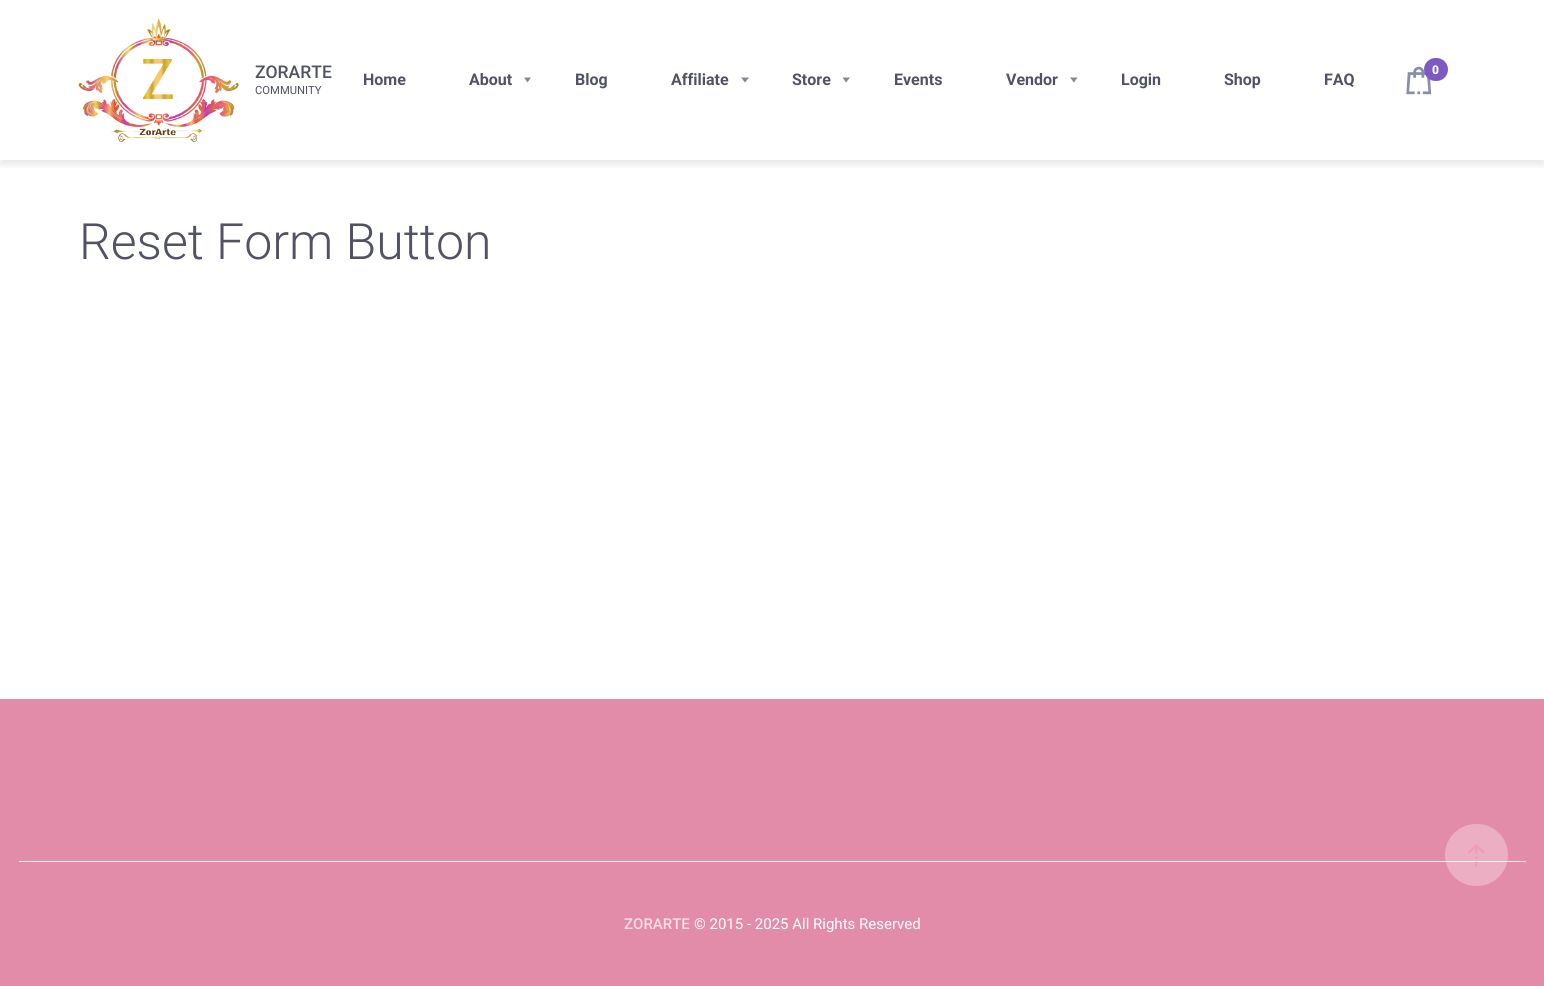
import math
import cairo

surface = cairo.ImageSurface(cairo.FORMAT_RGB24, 1544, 986)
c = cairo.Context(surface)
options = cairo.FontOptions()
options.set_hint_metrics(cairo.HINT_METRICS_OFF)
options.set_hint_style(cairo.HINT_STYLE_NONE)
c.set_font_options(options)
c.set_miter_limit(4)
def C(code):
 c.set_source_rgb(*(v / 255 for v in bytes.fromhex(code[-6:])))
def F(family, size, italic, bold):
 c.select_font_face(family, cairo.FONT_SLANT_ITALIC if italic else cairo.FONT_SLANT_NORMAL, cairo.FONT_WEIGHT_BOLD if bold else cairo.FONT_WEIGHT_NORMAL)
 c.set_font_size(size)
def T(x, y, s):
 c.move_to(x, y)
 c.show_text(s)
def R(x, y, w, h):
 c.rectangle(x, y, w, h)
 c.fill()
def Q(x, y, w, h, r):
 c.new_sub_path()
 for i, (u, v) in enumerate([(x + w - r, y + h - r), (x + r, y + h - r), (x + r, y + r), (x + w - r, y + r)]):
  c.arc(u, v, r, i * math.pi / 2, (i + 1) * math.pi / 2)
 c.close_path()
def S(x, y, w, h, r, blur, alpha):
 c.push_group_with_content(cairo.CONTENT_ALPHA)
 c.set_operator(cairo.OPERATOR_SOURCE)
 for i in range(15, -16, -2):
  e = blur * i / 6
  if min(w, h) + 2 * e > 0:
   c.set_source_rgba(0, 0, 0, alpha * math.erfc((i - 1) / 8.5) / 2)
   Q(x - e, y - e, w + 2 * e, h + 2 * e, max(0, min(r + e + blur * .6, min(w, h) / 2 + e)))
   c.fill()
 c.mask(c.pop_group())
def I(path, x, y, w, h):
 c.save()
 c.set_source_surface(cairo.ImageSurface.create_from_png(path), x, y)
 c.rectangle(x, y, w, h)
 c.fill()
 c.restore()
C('ffffff')
c.paint()
c.save()
c.rectangle(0,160,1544,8)
c.clip()
C('000000')
S(0,5,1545,160,0,4,.09)
c.restore()
I('1.png',78,18,161,124)
F('Roboto Medium',17.5,0,0)
C('515365')
T(255,78,'ZORARTE')
F('Roboto',11.25,0,0)
T(255,94,'COMMUNITY')
I('2.png',1406,66,26,29)
C('7c5ac2')
Q(1424,58,24,23,11.5)
c.fill()
F('Roboto Black',12,0,0)
C('ffffff')
T(1432,74,'0')
F('Roboto',16,0,1)
C('515365')
T(363,85,'Home')
T(469,85,'About')
C('858793')
c.new_path()
c.move_to(524,77.5)
c.line_to(531,77.5)
c.line_to(527.5,82.5)
c.close_path()
c.fill()
C('515365')
T(575,85,'Blog')
T(671,85,'Affiliate')
C('858793')
c.new_path()
c.move_to(741,77.5)
c.line_to(749,77.5)
c.line_to(745,82.5)
c.close_path()
c.fill()
C('515365')
T(792,85,'Store')
C('858793')
c.new_path()
c.move_to(842.5,77.5)
c.line_to(850,77.5)
c.line_to(846,82.5)
c.close_path()
c.fill()
C('515365')
T(894,85,'Events')
T(1006,85,'Vendor')
C('858793')
c.new_path()
c.move_to(1070,77.5)
c.line_to(1077.5,77.5)
c.line_to(1074,82.5)
c.close_path()
c.fill()
C('515365')
T(1121,85,'Login')
T(1224,85,'Shop')
T(1324,85,'FAQ')
F('Roboto Light',50,0,0)
T(79,259,'Reset Form Button')
C('e38ca9')
R(0,699,1544,287)
C('e6ecf5')
R(19,861,1507,1)
c.set_source_rgba(1,1,1,0.3)
Q(1445,824,63,62,31)
c.fill()
I('3.png',1468,844,17,23)
F('Roboto Medium',15,0,0)
C('f7dde5')
T(624,929,'ZORARTE')
F('Roboto',15,0,0)
C('ffffff')
T(694,929,'© 2015 - 2025 All Rights Reserved')
surface.write_to_png('o.png')
